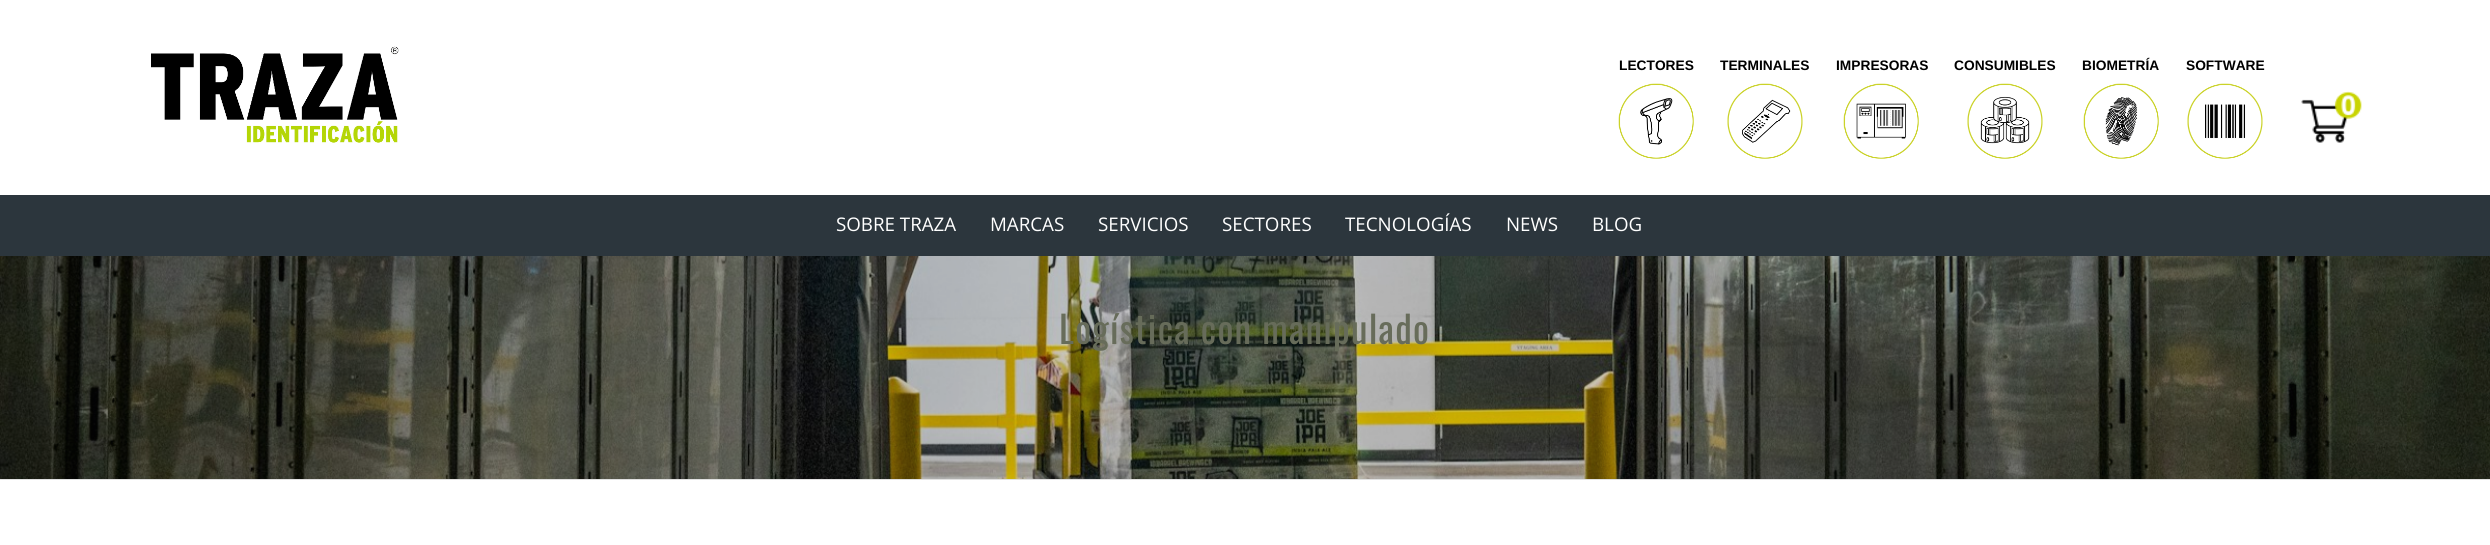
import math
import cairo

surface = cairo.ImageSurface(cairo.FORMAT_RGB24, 2490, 545)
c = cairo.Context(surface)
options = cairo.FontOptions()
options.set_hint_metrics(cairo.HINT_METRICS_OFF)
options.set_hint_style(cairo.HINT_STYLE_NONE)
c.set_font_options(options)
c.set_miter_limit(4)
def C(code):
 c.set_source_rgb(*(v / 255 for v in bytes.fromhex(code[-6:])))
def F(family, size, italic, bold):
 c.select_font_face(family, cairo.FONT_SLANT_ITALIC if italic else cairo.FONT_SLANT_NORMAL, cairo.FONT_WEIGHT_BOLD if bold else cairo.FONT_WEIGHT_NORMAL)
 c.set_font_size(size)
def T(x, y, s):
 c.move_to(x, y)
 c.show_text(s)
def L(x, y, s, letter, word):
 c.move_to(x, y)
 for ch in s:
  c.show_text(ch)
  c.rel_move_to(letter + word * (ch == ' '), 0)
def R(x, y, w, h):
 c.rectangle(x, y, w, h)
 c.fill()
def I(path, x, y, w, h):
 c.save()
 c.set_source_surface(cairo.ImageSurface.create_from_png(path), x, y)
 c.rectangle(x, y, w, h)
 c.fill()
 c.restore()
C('ffffff')
c.paint()
I('1.png',151,46,248,97)
F('Liberation Sans',13.75,0,1)
C('000000')
T(1619,70,'LECTORES')
I('2.png',1618,83,76,76)
T(1720,70,'TERMINALES')
I('3.png',1727,83,76,76)
T(1836,70,'IMPRESORAS')
I('4.png',1843,83,76,76)
T(1954,70,'CONSUMIBLES')
I('5.png',1967,83,76,76)
T(2082,70,'BIOMETRÍA')
I('6.png',2083,83,76,76)
T(2186,70,'SOFTWARE')
I('7.png',2187,83,76,76)
I('8.png',2301,91,61,52)
C('2c363d')
R(0,195,2490,61)
F('Open Sans',18.75,0,0)
C('ffffff')
T(836,231,'SOBRE TRAZA')
T(990,231,'MARCAS')
T(1098,231,'SERVICIOS')
T(1222,231,'SECTORES')
T(1345,231,'TECNOLOGÍAS')
T(1506,231,'NEWS')
T(1592,231,'BLOG')
I('9.png',0,256,2490,223)
F('Oswald',37.5,0,0)
C('676c5a')
L(1059,344,'Logística con manipulado',1.25,0)
C('e1e1e1')
R(0,479,2490,1)
surface.write_to_png('o.png')
